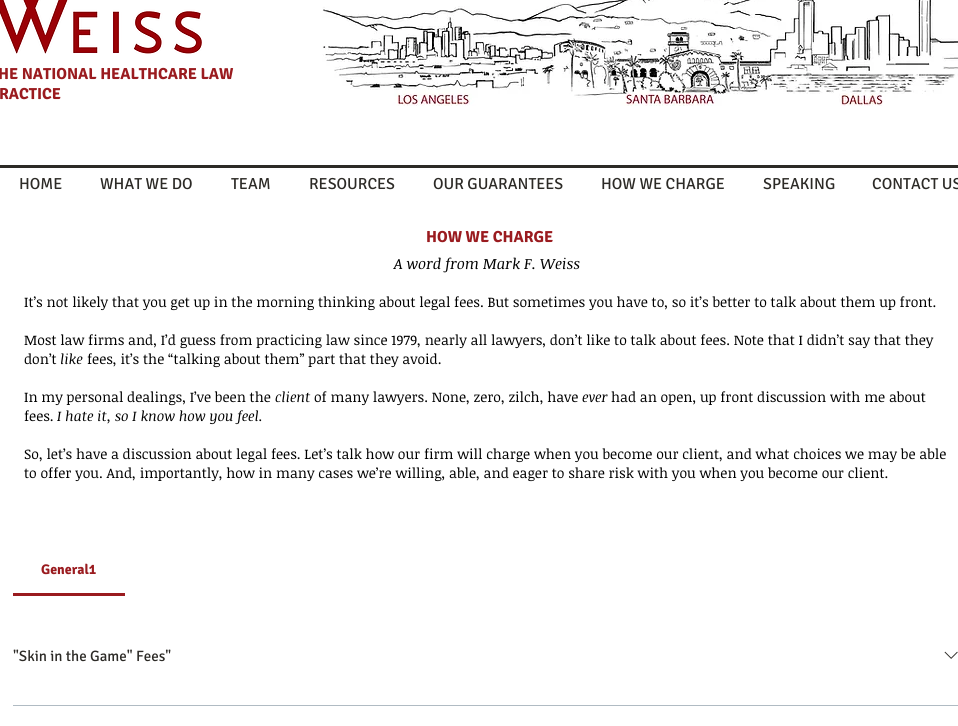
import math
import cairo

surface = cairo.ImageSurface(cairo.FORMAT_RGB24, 958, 726)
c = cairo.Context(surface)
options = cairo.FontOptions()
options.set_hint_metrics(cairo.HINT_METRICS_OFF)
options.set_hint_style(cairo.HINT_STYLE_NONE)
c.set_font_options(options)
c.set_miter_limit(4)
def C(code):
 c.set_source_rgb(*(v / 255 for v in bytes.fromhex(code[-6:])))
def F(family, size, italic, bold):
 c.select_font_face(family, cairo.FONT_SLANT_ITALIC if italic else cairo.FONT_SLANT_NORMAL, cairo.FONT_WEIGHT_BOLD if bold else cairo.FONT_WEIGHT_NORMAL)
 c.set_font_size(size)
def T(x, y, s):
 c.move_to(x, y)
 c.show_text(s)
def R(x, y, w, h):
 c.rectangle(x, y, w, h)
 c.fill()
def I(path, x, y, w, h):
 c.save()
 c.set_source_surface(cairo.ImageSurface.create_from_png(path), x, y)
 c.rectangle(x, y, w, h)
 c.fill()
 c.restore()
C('ffffff')
c.paint()
I('1.png',0,0,202,54)
I('2.png',322,0,636,106)
F('Signika',16,0,1)
C('9a1b1f')
T(-2,79,'HE NATIONAL HEALTHCARE LAW')
T(-1,99,'RACTICE')
C('2c2a26')
R(0,165,958,3)
F('Signika',16,0,0)
T(19,189,'HOME')
T(100,189,'WHAT WE DO')
T(231,189,'TEAM')
T(309,189,'RESOURCES')
T(433,189,'OUR GUARANTEES')
T(601,189,'HOW WE CHARGE')
T(763,189,'SPEAKING')
T(872,189,'CONTACT US')
F('Signika',16,0,1)
C('9a1b1f')
T(426,242,'HOW WE CHARGE')
F('Noticia Text',15,1,0)
C('000000')
T(394,269,'A word from Mark F. Weiss')
F('Noticia Text',14,0,0)
T(24,307,'It’s not likely that you get up in the morning thinking about legal fees. But sometimes you have to, so it’s better to talk about them up front.')
T(24,345,'Most law firms and, I’d guess from practicing law since 1979, nearly all lawyers, don’t like to talk about fees. Note that I didn’t say that they')
T(24,364,'don’t')
F('Noticia Text',14,1,0)
T(60,364,'like')
F('Noticia Text',14,0,0)
T(87,364,'fees, it’s the “talking about them” part that they avoid.')
T(24,402,'In my personal dealings, I’ve been the')
F('Noticia Text',14,1,0)
T(275,402,'client')
F('Noticia Text',14,0,0)
T(314,402,'of many lawyers. None, zero, zilch, have')
F('Noticia Text',14,1,0)
T(582,402,'ever')
F('Noticia Text',14,0,0)
T(611,402,'had an open, up front discussion with me about')
T(24,421,'fees.')
F('Noticia Text',14,1,0)
T(57,421,'I hate it, so I know how you feel.')
F('Noticia Text',14,0,0)
T(24,459,'So, let’s have a discussion about legal fees. Let’s talk how our firm will charge when you become our client, and what choices we may be able')
T(24,478,'to offer you. And, importantly, how in many cases we’re willing, able, and eager to share risk with you when you become our client.')
C('9a1b1f')
R(13,593,112,3)
F('Signika',14,0,1)
T(41,574,'General1')
F('Signika',15,0,0)
C('2c2a26')
T(13,661,'"Skin in the Game" Fees"')
I('3.png',944,651,14,8)
C('b0bbc3')
R(13,705,945,1)
surface.write_to_png('o.png')
